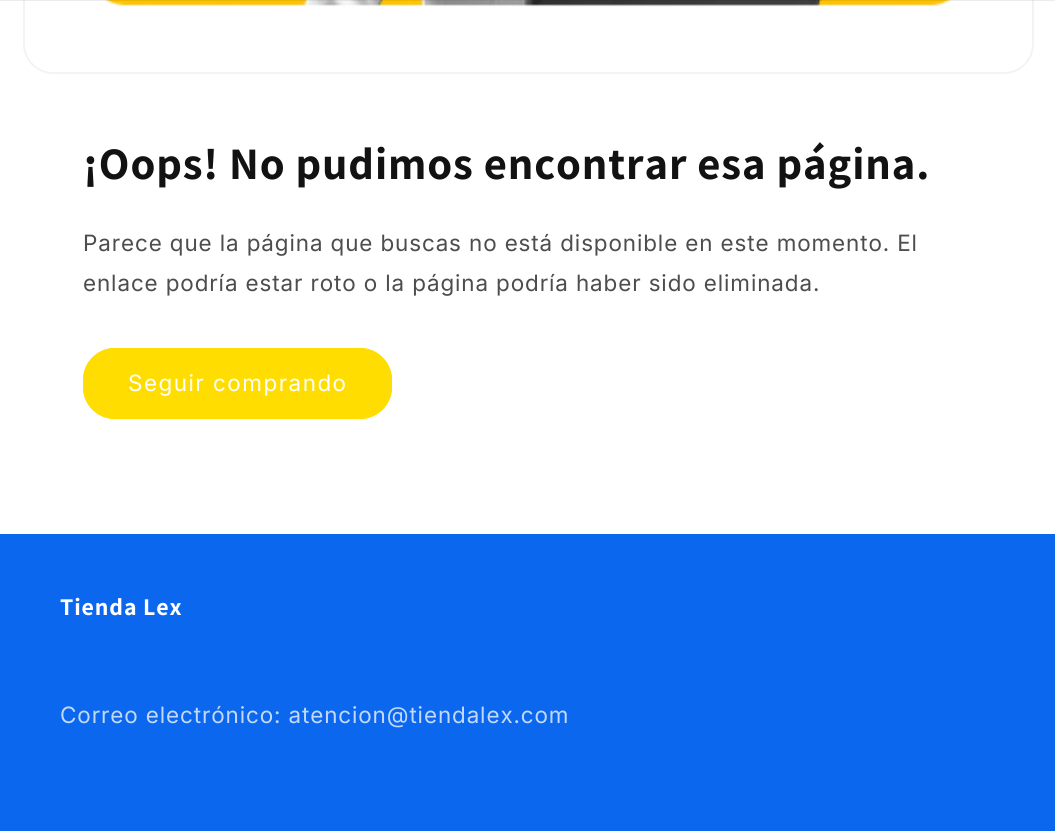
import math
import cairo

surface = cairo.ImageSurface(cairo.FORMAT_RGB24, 1055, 831)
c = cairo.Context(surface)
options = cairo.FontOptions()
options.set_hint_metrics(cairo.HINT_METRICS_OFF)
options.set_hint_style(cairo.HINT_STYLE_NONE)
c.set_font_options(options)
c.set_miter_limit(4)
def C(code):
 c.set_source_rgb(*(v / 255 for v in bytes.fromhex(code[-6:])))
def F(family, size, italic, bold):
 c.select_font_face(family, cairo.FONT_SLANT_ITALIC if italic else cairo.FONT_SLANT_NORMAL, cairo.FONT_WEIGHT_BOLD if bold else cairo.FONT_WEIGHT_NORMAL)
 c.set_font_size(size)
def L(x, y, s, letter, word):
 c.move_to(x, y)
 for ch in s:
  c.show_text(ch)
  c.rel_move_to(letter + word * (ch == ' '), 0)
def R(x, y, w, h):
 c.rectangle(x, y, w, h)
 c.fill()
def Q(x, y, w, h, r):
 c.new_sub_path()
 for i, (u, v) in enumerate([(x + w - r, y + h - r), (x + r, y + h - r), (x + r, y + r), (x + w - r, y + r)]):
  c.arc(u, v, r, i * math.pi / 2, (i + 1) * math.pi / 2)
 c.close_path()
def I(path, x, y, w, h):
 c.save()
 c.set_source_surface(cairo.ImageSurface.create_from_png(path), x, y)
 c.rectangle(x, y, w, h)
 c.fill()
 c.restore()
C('ffffff')
c.paint()
Q(24,-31,1009,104,29)
C('f3f3f3')
c.stroke()
I('1.png',104,0,849,7)
c.set_source_rgba(0.071,0.071,0.071,0.08)
R(0,0,1055,1)
F('Assistant',45,0,1)
C('121212')
L(83,179,'¡Oops! No pudimos encontrar esa página.',.9,0)
F('Inter',22.5,0,0)
C('4d4d4d')
L(83,251,'Parece que la página que buscas no está disponible en este momento. El',.9,0)
L(83,291,'enlace podría estar roto o la página podría haber sido eliminada.',.9,0)
C('ffdd00')
Q(83,348,309,71,32)
c.fill()
Q(84,349,307,69,31)
c.stroke()
C('ffffff')
L(128,391,'Seguir comprando',1.5,0)
C('0b67ee')
R(0,534,1055,297)
F('Assistant',24,0,1)
C('ffffff')
L(60,615,'Tienda Lex',.9,0)
F('Inter',22.5,0,0)
C('c2d9fb')
L(60,723,'Correo electrónico: atencion@tiendalex.com',.9,0)
surface.write_to_png('o.png')
